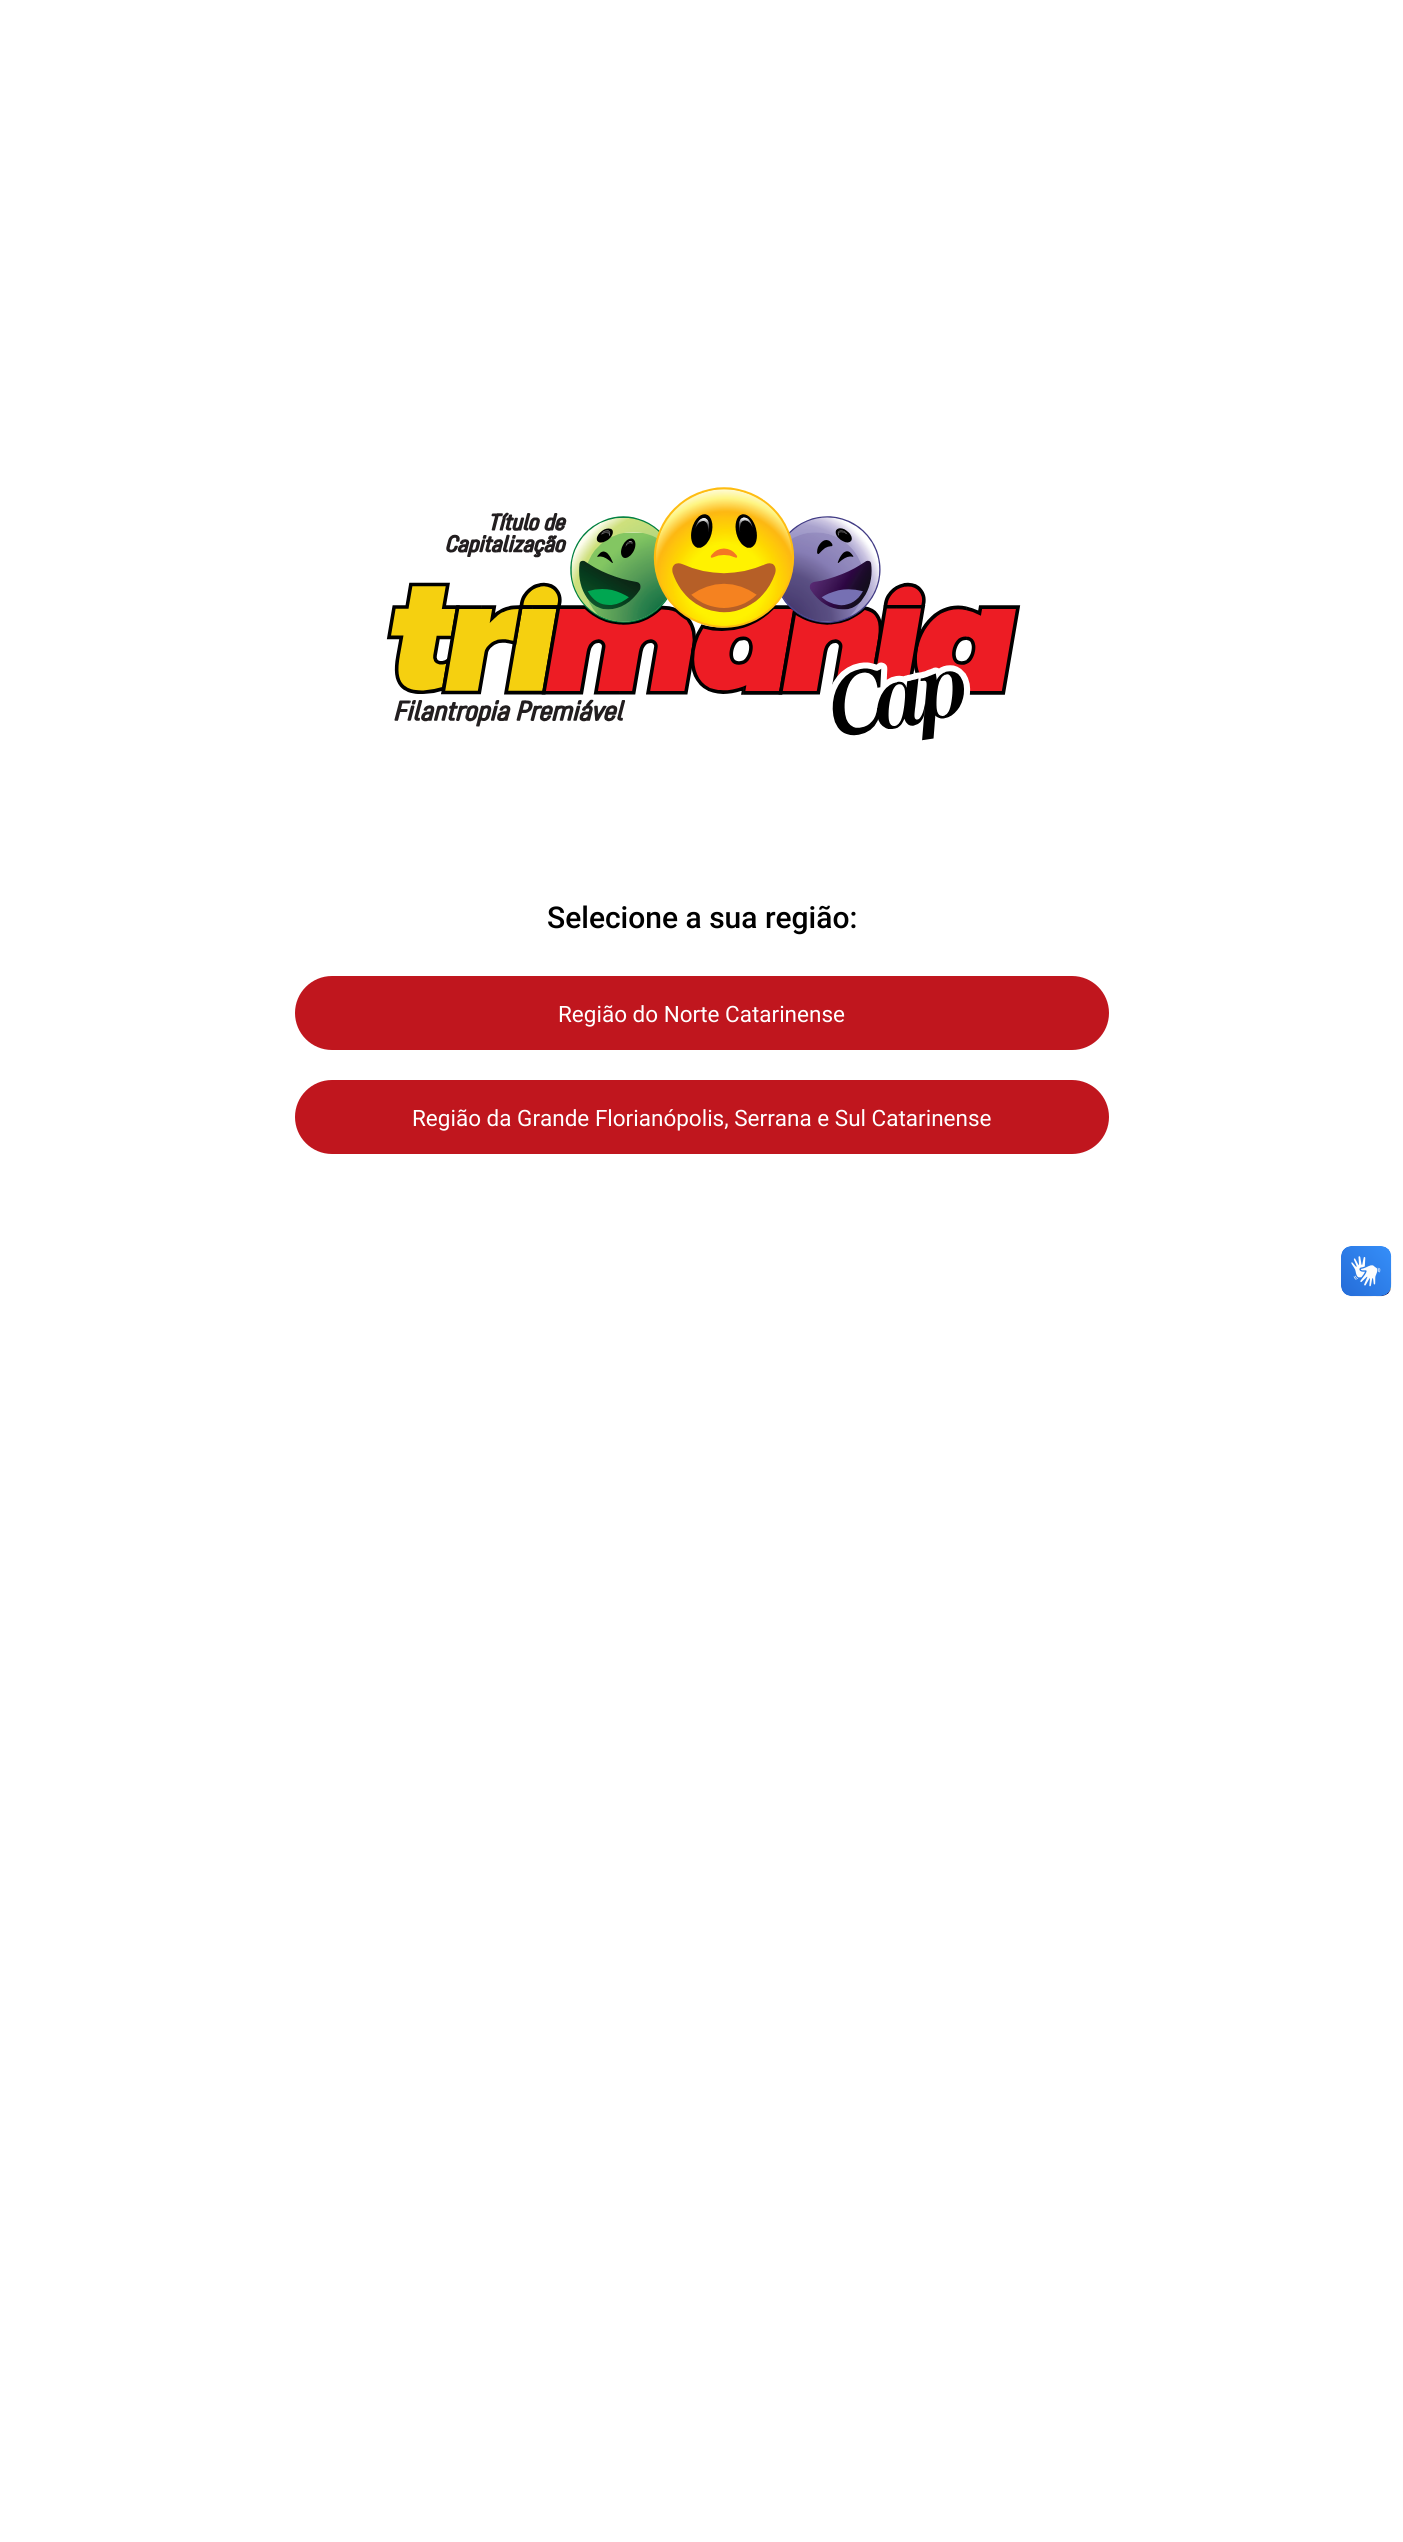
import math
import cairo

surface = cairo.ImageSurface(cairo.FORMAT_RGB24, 1403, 2542)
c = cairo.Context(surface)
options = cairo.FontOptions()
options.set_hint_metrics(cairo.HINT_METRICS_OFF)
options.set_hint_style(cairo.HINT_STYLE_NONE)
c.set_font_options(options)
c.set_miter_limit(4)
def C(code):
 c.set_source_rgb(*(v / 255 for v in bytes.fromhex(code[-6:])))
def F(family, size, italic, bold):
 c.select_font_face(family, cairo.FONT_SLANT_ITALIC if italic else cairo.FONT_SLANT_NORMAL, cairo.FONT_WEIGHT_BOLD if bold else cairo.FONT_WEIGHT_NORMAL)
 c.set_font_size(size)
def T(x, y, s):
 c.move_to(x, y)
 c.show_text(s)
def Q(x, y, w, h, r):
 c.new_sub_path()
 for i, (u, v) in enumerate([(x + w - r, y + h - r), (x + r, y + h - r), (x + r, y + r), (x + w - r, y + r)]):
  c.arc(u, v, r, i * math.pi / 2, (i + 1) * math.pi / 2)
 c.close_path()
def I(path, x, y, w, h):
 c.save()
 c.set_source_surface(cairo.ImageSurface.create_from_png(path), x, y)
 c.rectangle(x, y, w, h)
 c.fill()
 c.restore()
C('ffffff')
c.paint()
I('1.png',386,487,635,254)
F('Roboto Medium',30,0,0)
C('000000')
T(547,928,'Selecione a sua região:')
C('c0161e')
Q(295,976,814,74,37)
c.fill()
F('Roboto',22.5,0,0)
C('ffffff')
T(558,1022,'Região do Norte Catarinense')
C('c0161e')
Q(295,1080,814,74,37)
c.fill()
C('ffffff')
T(412,1126,'Região da Grande Florianópolis, Serrana e Sul Catarinense')
I('2.png',1341,1246,51,51)
I('3.png',1341,1246,50,50)
surface.write_to_png('o.png')
